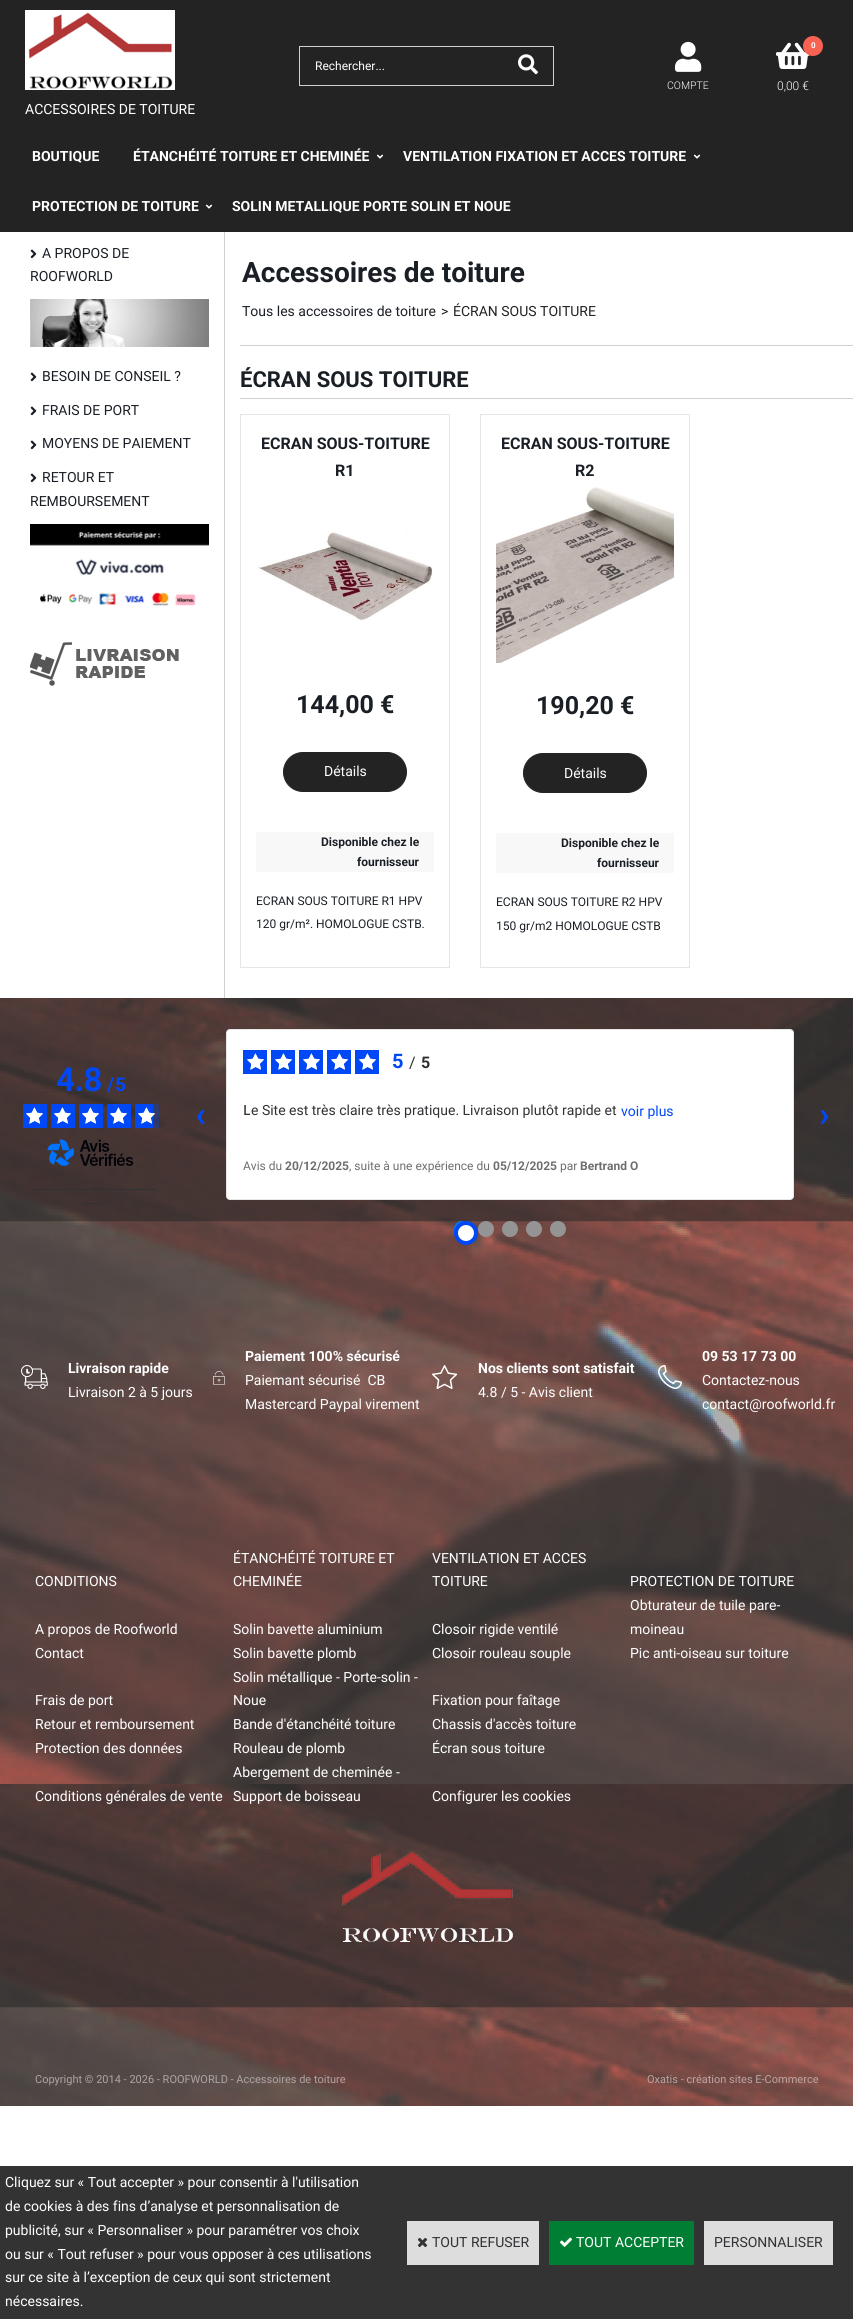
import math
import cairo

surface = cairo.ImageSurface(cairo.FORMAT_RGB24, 853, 2319)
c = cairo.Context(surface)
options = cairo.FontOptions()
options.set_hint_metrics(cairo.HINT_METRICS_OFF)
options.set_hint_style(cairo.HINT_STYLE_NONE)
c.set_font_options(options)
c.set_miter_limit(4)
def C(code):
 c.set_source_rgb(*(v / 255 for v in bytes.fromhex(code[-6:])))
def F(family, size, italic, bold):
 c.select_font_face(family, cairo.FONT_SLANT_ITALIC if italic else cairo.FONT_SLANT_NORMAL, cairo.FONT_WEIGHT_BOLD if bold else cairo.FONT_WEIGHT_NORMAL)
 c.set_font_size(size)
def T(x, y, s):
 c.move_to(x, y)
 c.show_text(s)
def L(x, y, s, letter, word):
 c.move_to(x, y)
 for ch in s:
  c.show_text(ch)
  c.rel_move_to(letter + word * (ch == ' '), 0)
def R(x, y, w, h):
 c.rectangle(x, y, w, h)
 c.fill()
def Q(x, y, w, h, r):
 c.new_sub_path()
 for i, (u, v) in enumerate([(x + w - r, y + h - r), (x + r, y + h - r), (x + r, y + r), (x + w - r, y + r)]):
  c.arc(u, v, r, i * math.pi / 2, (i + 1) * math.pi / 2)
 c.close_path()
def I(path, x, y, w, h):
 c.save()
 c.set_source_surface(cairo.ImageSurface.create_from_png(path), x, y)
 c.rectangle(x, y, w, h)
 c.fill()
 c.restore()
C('ffffff')
c.paint()
C('232323')
R(0,0,853,232)
C('d0d0d0')
R(299,46,255,1)
R(299,85,204,1)
R(299,46,1,40)
F('Roboto',12,0,0)
C('ffffff')
T(315,70,'Rechercher...')
C('d0d0d0')
R(553,46,1,40)
R(503,85,51,1)
I('1.png',518,54,20,21)
I('2.png',675,41,27,31)
F('Roboto Light',10.5,0,0)
C('ffffff')
T(667,89,'COMPTE')
I('3.png',776,42,34,27)
C('f86253')
c.arc(813,46,10,0,2 * math.pi)
c.fill()
F('Roboto',8,0,1)
C('ffffff')
T(811,48,'0')
F('Roboto Light',12,0,0)
T(777,90,'0,00 €')
I('4.png',25,10,150,80)
F('Roboto',14,0,0)
T(25,114,'ACCESSOIRES DE TOITURE')
F('Roboto',14,0,1)
T(32,161,'BOUTIQUE')
T(133,161,'ÉTANCHÉITÉ TOITURE ET CHEMINÉE')
I('5.png',376,154,8,5)
T(403,161,'VENTILATION FIXATION ET ACCES TOITURE')
I('5.png',693,154,8,5)
T(32,211,'PROTECTION DE TOITURE')
I('5.png',205,204,8,5)
T(232,211,'SOLIN METALLIQUE PORTE SOLIN ET NOUE')
C('d0d0d0')
R(224,232,1,766)
I('6.png',30,249,7,10)
F('Roboto',14,0,0)
C('1a1f26')
T(42,258,'A PROPOS DE')
T(30,281,'ROOFWORLD')
I('7.png',30,299,179,48)
I('6.png',30,372,7,10)
T(42,381,'BESOIN DE CONSEIL ?')
I('6.png',30,406,7,10)
T(42,415,'FRAIS DE PORT')
I('6.png',30,440,7,10)
T(42,448,'MOYENS DE PAIEMENT')
I('6.png',30,473,7,10)
T(42,482,'RETOUR ET')
T(30,506,'REMBOURSEMENT')
I('8.png',30,524,179,82)
I('9.png',30,642,149,44)
C('d0d0d0')
R(240,345,613,1)
F('Roboto',28,0,1)
C('1a1f26')
T(242,282,'Accessoires de toiture')
F('Roboto',14,0,0)
T(242,316,'Tous les accessoires de toiture')
T(441,316,'>')
C('232323')
T(453,316,'ÉCRAN SOUS TOITURE')
C('d0d0d0')
R(240,398,613,1)
F('Roboto',22,0,1)
C('1a1f26')
T(240,387,'ÉCRAN SOUS TOITURE')
c.rectangle(240.5,414.5,209,553)
C('e6e6e6')
c.set_line_width(1)
c.stroke()
F('Roboto',16,0,1)
C('1a1f26')
T(261,449,'ECRAN SOUS-TOITURE')
T(335,476,'R1')
I('10.png',257,532,176,89)
F('Roboto',25,0,1)
T(296,713,'144,00 €')
C('232323')
Q(283.5,752.5,123,39,19.5)
c.fill_preserve()
c.stroke()
F('Roboto',14,0,0)
C('ffffff')
T(324,776,'Détails')
C('f8f8f8')
R(256,832,178,40)
F('Roboto',12,0,1)
C('1a1f26')
T(321,846,'Disponible chez le')
T(357,866,'fournisseur')
F('Roboto',12,0,0)
T(256,905,'ECRAN SOUS TOITURE R1 HPV')
T(256,928,'120 gr/m². HOMOLOGUE CSTB.')
c.rectangle(480.5,414.5,209,553)
C('e6e6e6')
c.stroke()
F('Roboto',16,0,1)
C('1a1f26')
T(501,449,'ECRAN SOUS-TOITURE')
T(575,476,'R2')
I('11.png',496,487,178,176)
F('Roboto',25,0,1)
T(536,714,'190,20 €')
C('232323')
Q(523.5,753.5,123,39,19.5)
c.fill_preserve()
c.stroke()
F('Roboto',14,0,0)
C('ffffff')
T(564,778,'Détails')
C('f8f8f8')
R(496,833,178,40)
F('Roboto',12,0,1)
C('1a1f26')
T(561,847,'Disponible chez le')
T(597,867,'fournisseur')
F('Roboto',12,0,0)
T(496,906,'ECRAN SOUS TOITURE R2 HPV')
T(496,930,'150 gr/m2 HOMOLOGUE CSTB')
I('12.png',0,998,853,1108)
F('Roboto',33,0,1)
C('0048f5')
L(56,1091,'4.8',-.5,0)
F('Roboto',19,0,1)
T(107,1091,'/')
T(115,1091,'5')
R(23,1104,24,24)
I('13.png',26,1107,17,17)
I('14.png',26,1107,17,17)
R(51,1104,24,24)
I('13.png',54,1107,17,17)
I('14.png',54,1107,17,17)
R(79,1104,24,24)
I('13.png',82,1107,17,17)
I('14.png',82,1107,17,17)
R(107,1104,24,24)
I('13.png',110,1107,17,17)
I('14.png',110,1107,17,17)
R(135,1104,18,24)
c.set_source_rgba(0,0.282,0.961,0.3)
R(153,1104,6,24)
I('15.png',138,1107,17,17)
I('16.png',138,1107,17,17)
I('17.png',47,1139,86,27)
C('313235')
R(30,1189,126,1)
R(83,1203,20,1)
F('Roboto',35,0,1)
C('0048f5')
T(195,1126,'‹')
C('ffffff')
Q(226.5,1029.5,567,170,3.5)
c.fill_preserve()
C('e7e7e7')
c.stroke()
C('0048f5')
R(243,1050,24,24)
I('13.png',247,1053,17,17)
I('14.png',247,1053,17,17)
R(271,1050,24,24)
I('13.png',275,1053,17,17)
I('14.png',275,1053,17,17)
R(299,1050,24,24)
I('13.png',303,1053,17,17)
I('14.png',303,1053,17,17)
R(327,1050,24,24)
I('13.png',331,1053,17,17)
I('14.png',331,1053,17,17)
R(355,1050,24,24)
I('13.png',359,1053,17,17)
I('14.png',359,1053,17,17)
F('Roboto',20,0,1)
L(392,1068,'5',1,0)
F('Roboto',16,0,0)
C('2f2e2e')
L(409,1068,'/',1,0)
F('Roboto',16,0,1)
L(421,1068,'5',1,0)
F('Noto Sans Medium',14,0,0)
C('313235')
T(243,1115,'L')
F('Roboto',14,0,0)
T(251,1115,'e Site est très claire très pratique. Livraison plutôt rapide et')
C('0048f5')
T(621,1116,'voir plus')
F('Roboto',12,0,0)
C('706d6d')
T(243,1170,'Avis du')
F('Roboto',12,0,1)
T(285,1170,'20/12/2025')
F('Roboto',12,0,0)
T(349,1170,', suite à une expérience du')
F('Roboto',12,0,1)
T(493,1170,'05/12/2025')
F('Roboto',12,0,0)
T(560,1170,'par')
F('Roboto',12,0,1)
T(580,1170,'Bertrand O')
F('Roboto',35,0,1)
C('0048f5')
T(819,1126,'›')
C('007aff')
c.new_path()
c.arc(462,1229,8,0,2 * math.pi)
c.fill()
C('ffffff')
c.arc(466,1233,10,0,2 * math.pi)
c.fill_preserve()
C('0048f5')
c.set_line_width(4)
c.stroke()
C('949494')
c.arc(486,1229,8,0,2 * math.pi)
c.fill()
c.arc(510,1229,8,0,2 * math.pi)
c.fill()
c.arc(534,1229,8,0,2 * math.pi)
c.fill()
c.arc(558,1229,8,0,2 * math.pi)
c.fill()
I('18.png',21,1365,27,24)
F('Roboto',14,0,1)
C('ffffff')
T(68,1373,'Livraison rapide')
F('Roboto',14,0,0)
T(68,1397,'Livraison 2 à 5 jours')
I('19.png',213,1371,12,14)
F('Roboto',14,0,1)
T(245,1361,'Paiement 100% sécurisé')
F('Roboto',14,0,0)
T(245,1385,'Paiemant sécurisé  CB')
T(245,1409,'Mastercard Paypal virement')
I('20.png',432,1365,26,24)
F('Roboto',14,0,1)
T(478,1373,'Nos clients sont satisfait')
F('Roboto',14,0,0)
T(478,1397,'4.8 / 5 - Avis client')
I('21.png',658,1365,24,24)
F('Roboto',14,0,1)
T(702,1361,'09 53 17 73 00')
F('Roboto',14,0,0)
T(702,1385,'Contactez-nous')
T(702,1409,'contact@roofworld.fr')
T(35,1586,'CONDITIONS')
T(233,1563,'ÉTANCHÉITÉ TOITURE ET')
T(233,1586,'CHEMINÉE')
T(432,1563,'VENTILATION ET ACCES')
T(432,1586,'TOITURE')
T(630,1586,'PROTECTION DE TOITURE')
T(35,1634,'A propos de Roofworld')
T(233,1634,'Solin bavette aluminium')
T(432,1634,'Closoir rigide ventilé')
T(630,1610,'Obturateur de tuile pare-')
T(630,1634,'moineau')
T(35,1658,'Contact')
T(233,1658,'Solin bavette plomb')
T(432,1658,'Closoir rouleau souple')
T(630,1658,'Pic anti-oiseau sur toiture')
T(35,1705,'Frais de port')
T(233,1682,'Solin métallique - Porte-solin -')
T(233,1705,'Noue')
T(432,1705,'Fixation pour faîtage')
T(35,1729,'Retour et remboursement')
T(233,1729,'Bande d\'étanchéité toiture')
T(432,1729,'Chassis d\'accès toiture')
T(35,1753,'Protection des données')
T(233,1753,'Rouleau de plomb')
T(432,1753,'Écran sous toiture')
T(35,1801,'Conditions générales de vente')
T(233,1777,'Abergement de cheminée -')
T(233,1801,'Support de boisseau')
T(432,1801,'Configurer les cookies')
I('22.png',342,1851,171,91)
F('Roboto',11,0,0)
C('ada5a3')
T(35,2083,'Copyright © 2014 - 2026 - ROOFWORLD - Accessoires de toiture')
C('bba5a2')
T(647,2083,'Oxatis - création sites E-Commerce')
C('333333')
R(0,2166,853,153)
F('Roboto',14,0,0)
C('ffffff')
T(5,2187,'Cliquez sur « Tout accepter » pour consentir à l\'utilisation')
T(5,2211,'de cookies à des fins d’analyse et personnalisation de')
T(5,2235,'publicité, sur « Personnaliser » pour paramétrer vos choix')
T(5,2259,'ou sur « Tout refuser » pour vous opposer à ces utilisations')
T(5,2282,'sur ce site à l’exception de ceux qui sont strictement')
T(5,2306,'nécessaires.')
C('dddddd')
R(407,2221,132,44)
I('23.png',417,2237,11,11)
C('313235')
T(432,2247,'TOUT REFUSER')
C('007e33')
R(549,2221,145,44)
I('24.png',560,2237,12,10)
C('ffffff')
T(576,2247,'TOUT ACCEPTER')
C('dddddd')
R(704,2221,129,44)
C('313235')
T(714,2247,'PERSONNALISER')
surface.write_to_png('o.png')
